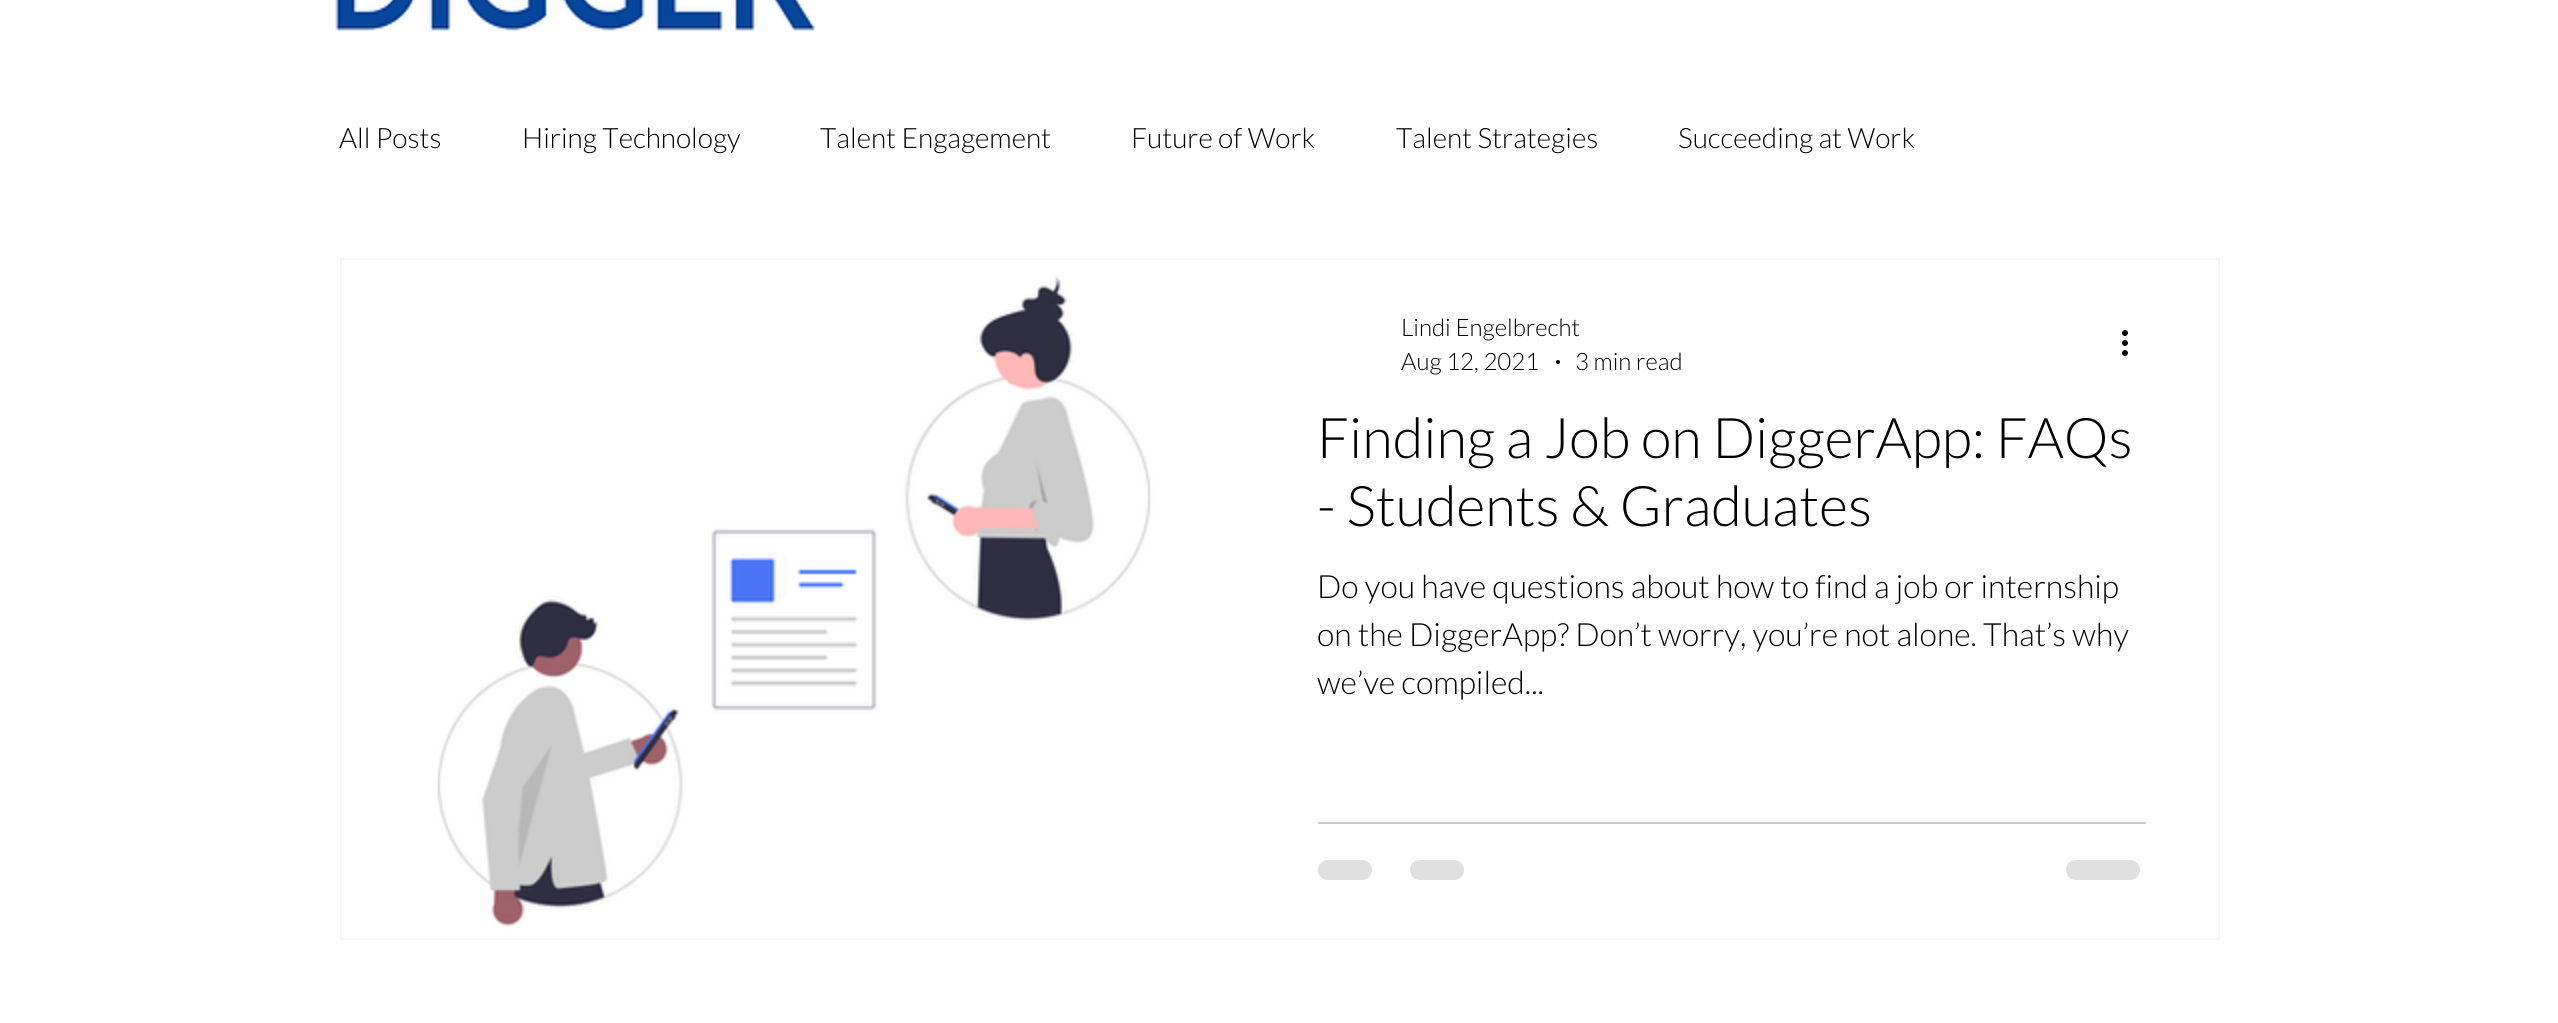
import math
import cairo

surface = cairo.ImageSurface(cairo.FORMAT_RGB24, 2558, 1023)
c = cairo.Context(surface)
options = cairo.FontOptions()
options.set_hint_metrics(cairo.HINT_METRICS_OFF)
options.set_hint_style(cairo.HINT_STYLE_NONE)
c.set_font_options(options)
c.set_miter_limit(4)
def C(code):
 c.set_source_rgb(*(v / 255 for v in bytes.fromhex(code[-6:])))
def F(family, size, italic, bold):
 c.select_font_face(family, cairo.FONT_SLANT_ITALIC if italic else cairo.FONT_SLANT_NORMAL, cairo.FONT_WEIGHT_BOLD if bold else cairo.FONT_WEIGHT_NORMAL)
 c.set_font_size(size)
def T(x, y, s):
 c.move_to(x, y)
 c.show_text(s)
def R(x, y, w, h):
 c.rectangle(x, y, w, h)
 c.fill()
def Q(x, y, w, h, r):
 c.new_sub_path()
 for i, (u, v) in enumerate([(x + w - r, y + h - r), (x + r, y + h - r), (x + r, y + r), (x + w - r, y + r)]):
  c.arc(u, v, r, i * math.pi / 2, (i + 1) * math.pi / 2)
 c.close_path()
def I(path, x, y, w, h):
 c.save()
 c.set_source_surface(cairo.ImageSurface.create_from_png(path), x, y)
 c.rectangle(x, y, w, h)
 c.fill()
 c.restore()
C('ffffff')
c.paint()
I('1.png',335,0,480,31)
F('Lato Light',28,0,0)
C('000000')
T(339,148,'All Posts')
T(522,148,'Hiring Technology')
T(820,148,'Talent Engagement')
T(1131,148,'Future of Work')
T(1396,148,'Talent Strategies')
T(1678,148,'Succeeding at Work')
c.rectangle(341,259,1878,680)
C('f6f6f6')
c.stroke()
I('2.png',391,260,793,678)
F('Lato Light',24,0,0)
C('000000')
T(1401,336,'Lindi Engelbrecht')
T(1401,370,'Aug 12, 2021')
c.new_path()
c.arc(1558,362,2,0,2 * math.pi)
c.fill()
T(1575,370,'3 min read')
I('3.png',2122,330,6,26)
F('Lato Light',56,0,0)
T(1317,458,'Finding a Job on DiggerApp: FAQs')
T(1317,526,'- Students & Graduates')
F('Lato Light',32,0,0)
T(1317,598,'Do you have questions about how to find a job or internship')
T(1317,646,'on the DiggerApp? Don’t worry, you’re not alone. That’s why')
T(1317,694,'we’ve compiled...')
C('cccccc')
R(1318,822,828,2)
C('e0e0e0')
Q(1318,860,54,20,10)
c.fill()
Q(1410,860,54,20,10)
c.fill()
Q(2066,860,74,20,10)
c.fill()
surface.write_to_png('o.png')
